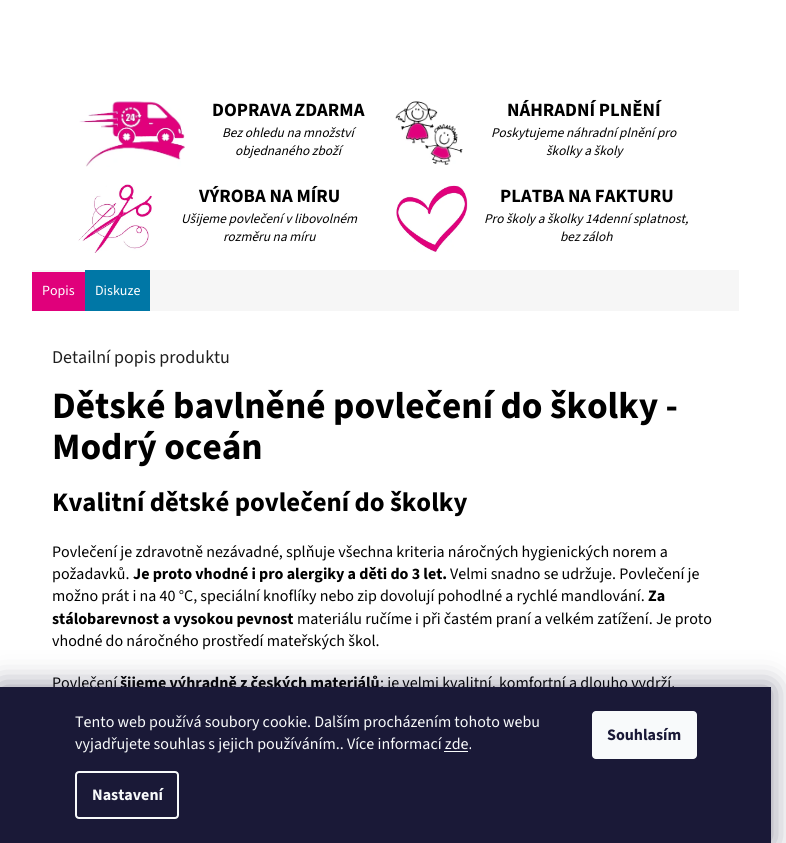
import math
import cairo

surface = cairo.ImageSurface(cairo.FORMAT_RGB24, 786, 843)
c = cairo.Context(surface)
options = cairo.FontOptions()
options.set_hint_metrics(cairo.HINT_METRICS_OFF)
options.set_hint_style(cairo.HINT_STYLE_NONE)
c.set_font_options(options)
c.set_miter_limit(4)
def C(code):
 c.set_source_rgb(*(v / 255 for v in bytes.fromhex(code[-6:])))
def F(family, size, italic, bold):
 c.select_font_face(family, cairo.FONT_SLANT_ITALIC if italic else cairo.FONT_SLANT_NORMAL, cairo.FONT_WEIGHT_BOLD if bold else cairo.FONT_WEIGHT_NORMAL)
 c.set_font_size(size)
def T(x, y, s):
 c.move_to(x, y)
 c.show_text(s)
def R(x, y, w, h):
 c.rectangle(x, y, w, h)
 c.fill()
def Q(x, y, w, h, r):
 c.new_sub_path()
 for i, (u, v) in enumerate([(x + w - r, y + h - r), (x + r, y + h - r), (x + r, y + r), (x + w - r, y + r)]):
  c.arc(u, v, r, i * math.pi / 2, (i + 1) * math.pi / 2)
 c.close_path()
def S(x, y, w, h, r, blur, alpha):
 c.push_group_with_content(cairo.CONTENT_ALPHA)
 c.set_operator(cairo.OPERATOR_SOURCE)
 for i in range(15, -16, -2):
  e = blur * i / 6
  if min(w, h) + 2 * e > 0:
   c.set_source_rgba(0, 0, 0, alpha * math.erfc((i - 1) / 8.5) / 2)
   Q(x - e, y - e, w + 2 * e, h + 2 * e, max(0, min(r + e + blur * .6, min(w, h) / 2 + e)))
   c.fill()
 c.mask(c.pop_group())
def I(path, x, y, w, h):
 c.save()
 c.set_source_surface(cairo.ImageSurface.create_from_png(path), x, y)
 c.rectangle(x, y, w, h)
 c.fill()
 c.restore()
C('ffffff')
c.paint()
I('1.png',79,101,106,66)
F('Source Sans 3',18.75,0,1)
C('000000')
T(212,116,'DOPRAVA ZDARMA')
F('Source Sans 3',13.3,1,0)
T(222,137,'Bez ohledu na množství')
T(235,155,'objednaného zboží')
I('2.png',395,101,68,64)
F('Source Sans 3',18.75,0,1)
T(507,116,'NÁHRADNÍ PLNĚNÍ')
F('Source Sans 3',13.3,1,0)
T(491,137,'Poskytujeme náhradní plnění pro')
T(546,155,'školky a školy')
I('3.png',78,184,74,69)
F('Source Sans 3',18.75,0,1)
T(199,202,'VÝROBA NA MÍRU')
F('Source Sans 3',13.3,1,0)
T(181,223,'Ušijeme povlečení v libovolném')
T(223,241,'rozměru na míru')
I('4.png',396,185,72,67)
F('Source Sans 3',18.75,0,1)
T(500,202,'PLATBA NA FAKTURU')
F('Source Sans 3',13.3,1,0)
T(484,223,'Pro školy a školky 14denní splatnost,')
T(560,241,'bez záloh')
C('f6f6f6')
R(150,270,589,41)
C('e0007b')
R(32,272,53,39)
C('f6f6f6')
R(32,270,53,2)
F('Source Sans 3',14,0,0)
C('ffffff')
T(42,295,'Popis')
C('0077a6')
R(85,270,65,41)
C('ffffff')
T(95,295,'Diskuze')
F('Source Sans 3',18,0,0)
C('1f1f1f')
T(52,363,'Detailní popis produktu')
F('Source Sans 3',37.3,0,1)
C('000000')
T(52,418,'Dětské bavlněné povlečení do školky -')
T(52,459,'Modrý oceán')
F('Source Sans 3',26.7,0,1)
T(52,511,'Kvalitní dětské povlečení do školky')
F('Source Sans 3',16,0,0)
T(52,557,'Povlečení je zdravotně nezávadné, splňuje všechna kriteria náročných hygienických norem a')
T(52,579,'požadavků.')
F('Source Sans 3',16,0,1)
T(133,579,'Je proto vhodné i pro alergiky a děti do 3 let.')
F('Source Sans 3',16,0,0)
T(450,579,'Velmi snadno se udržuje. Povlečení je')
T(52,601,'možno prát i na 40 °C, speciální knoflíky nebo zip dovolují pohodlné a rychlé mandlování.')
F('Source Sans 3',16,0,1)
T(648,601,'Za')
T(52,624,'stálobarevnost a vysokou pevnost')
F('Source Sans 3',16,0,0)
T(297,624,'materiálu ručíme i při častém praní a velkém zatížení. Je proto')
T(52,646,'vhodné do náročného prostředí mateřských škol.')
T(52,688,'Povlečení')
F('Source Sans 3',16,0,1)
T(120,688,'šijeme výhradně z českých materiálů')
F('Source Sans 3',16,0,0)
T(380,688,'; je velmi kvalitní, komfortní a dlouho vydrží.')
C('1b1939')
S(0,687,771,156,0,15,.5)
C('1a1937')
R(0,687,771,156)
C('f8fafb')
T(75,727,'Tento web používá soubory cookie. Dalším procházením tohoto webu')
T(75,749,'vyjadřujete souhlas s jejich používáním.. Více informací zde.')
R(444,751,24,1)
Q(76,772,102,46,3)
c.stroke()
F('Source Sans 3',16,0,1)
T(92,800,'Nastavení')
Q(592,711,105,48,4)
c.fill()
C('1a1937')
T(607,740,'Souhlasím')
surface.write_to_png('o.png')
